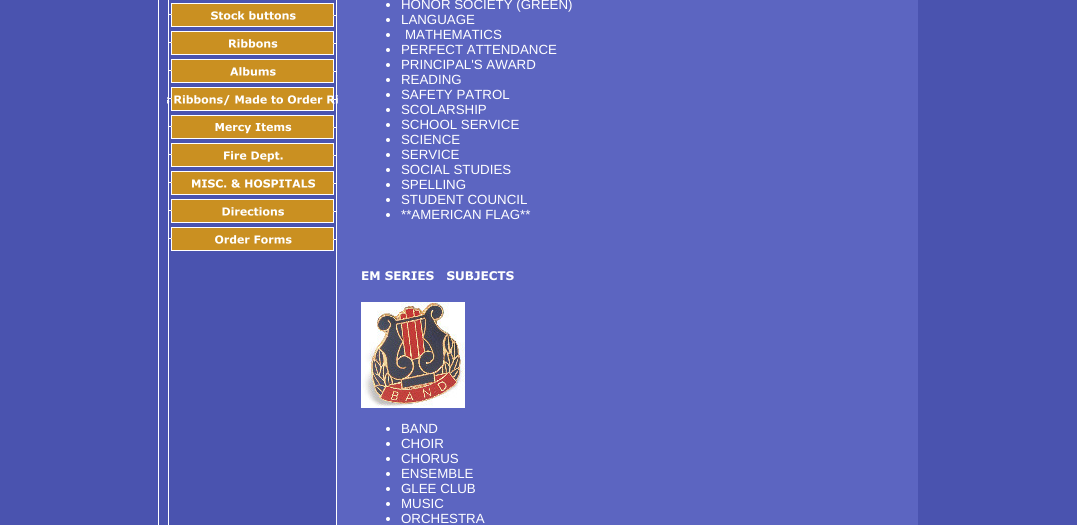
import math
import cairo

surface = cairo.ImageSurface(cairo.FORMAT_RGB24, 1077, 525)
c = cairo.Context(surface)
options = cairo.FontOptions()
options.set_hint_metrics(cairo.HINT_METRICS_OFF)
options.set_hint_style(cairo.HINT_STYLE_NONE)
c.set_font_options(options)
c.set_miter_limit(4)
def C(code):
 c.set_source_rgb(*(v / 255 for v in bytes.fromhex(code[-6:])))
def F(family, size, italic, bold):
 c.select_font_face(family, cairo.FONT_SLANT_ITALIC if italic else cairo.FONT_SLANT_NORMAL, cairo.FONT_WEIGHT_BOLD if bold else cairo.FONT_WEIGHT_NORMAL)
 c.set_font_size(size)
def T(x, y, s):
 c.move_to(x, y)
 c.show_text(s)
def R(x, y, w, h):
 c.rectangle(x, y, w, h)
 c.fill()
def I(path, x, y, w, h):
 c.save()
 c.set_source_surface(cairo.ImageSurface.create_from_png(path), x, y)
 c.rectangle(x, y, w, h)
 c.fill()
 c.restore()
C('4a53af')
c.paint()
C('ffffff')
R(158,0,1,525)
I('1.png',168,0,171,525)
I('2.png',169,3,167,24)
I('3.png',169,31,167,24)
I('4.png',169,59,167,24)
I('5.png',167,87,171,24)
I('6.png',169,115,167,24)
I('7.png',169,143,167,24)
I('8.png',169,171,167,24)
I('9.png',169,199,167,24)
I('10.png',169,227,167,24)
C('5c65c1')
R(339,0,579,525)
C('ffffff')
c.arc(388,5,2,0,2 * math.pi)
c.fill()
F('Liberation Sans',13.3,0,0)
T(401,9,'HONOR SOCIETY (GREEN)')
c.new_path()
c.arc(388,20,2,0,2 * math.pi)
c.fill()
T(401,24,'LANGUAGE')
c.new_path()
c.arc(388,35,2,0,2 * math.pi)
c.fill()
T(405,39,'MATHEMATICS')
c.new_path()
c.arc(388,50,2,0,2 * math.pi)
c.fill()
T(401,54,'PERFECT ATTENDANCE')
c.new_path()
c.arc(388,65,2,0,2 * math.pi)
c.fill()
T(401,69,'PRINCIPAL\'S AWARD')
c.new_path()
c.arc(388,80,2,0,2 * math.pi)
c.fill()
T(401,84,'READING')
c.new_path()
c.arc(388,95,2,0,2 * math.pi)
c.fill()
T(401,99,'SAFETY PATROL')
c.new_path()
c.arc(388,110,2,0,2 * math.pi)
c.fill()
T(401,114,'SCOLARSHIP')
c.new_path()
c.arc(388,125,2,0,2 * math.pi)
c.fill()
T(401,129,'SCHOOL SERVICE')
c.new_path()
c.arc(388,140,2,0,2 * math.pi)
c.fill()
T(401,144,'SCIENCE')
c.new_path()
c.arc(388,155,2,0,2 * math.pi)
c.fill()
T(401,159,'SERVICE')
c.new_path()
c.arc(388,170,2,0,2 * math.pi)
c.fill()
T(401,174,'SOCIAL STUDIES')
c.new_path()
c.arc(388,185,2,0,2 * math.pi)
c.fill()
T(401,189,'SPELLING')
c.new_path()
c.arc(388,200,2,0,2 * math.pi)
c.fill()
T(401,204,'STUDENT COUNCIL')
c.new_path()
c.arc(388,215,2,0,2 * math.pi)
c.fill()
T(401,219,'**AMERICAN FLAG**')
I('11.png',362,271,152,10)
I('12.png',361,302,104,106)
c.arc(388,429,2,0,2 * math.pi)
c.fill()
T(401,433,'BAND')
c.new_path()
c.arc(388,444,2,0,2 * math.pi)
c.fill()
T(401,448,'CHOIR')
c.new_path()
c.arc(388,459,2,0,2 * math.pi)
c.fill()
T(401,463,'CHORUS')
c.new_path()
c.arc(388,474,2,0,2 * math.pi)
c.fill()
T(401,478,'ENSEMBLE')
c.new_path()
c.arc(388,489,2,0,2 * math.pi)
c.fill()
T(401,493,'GLEE CLUB')
c.new_path()
c.arc(388,504,2,0,2 * math.pi)
c.fill()
T(401,508,'MUSIC')
c.new_path()
c.arc(388,519,2,0,2 * math.pi)
c.fill()
T(401,523,'ORCHESTRA')
surface.write_to_png('o.png')
